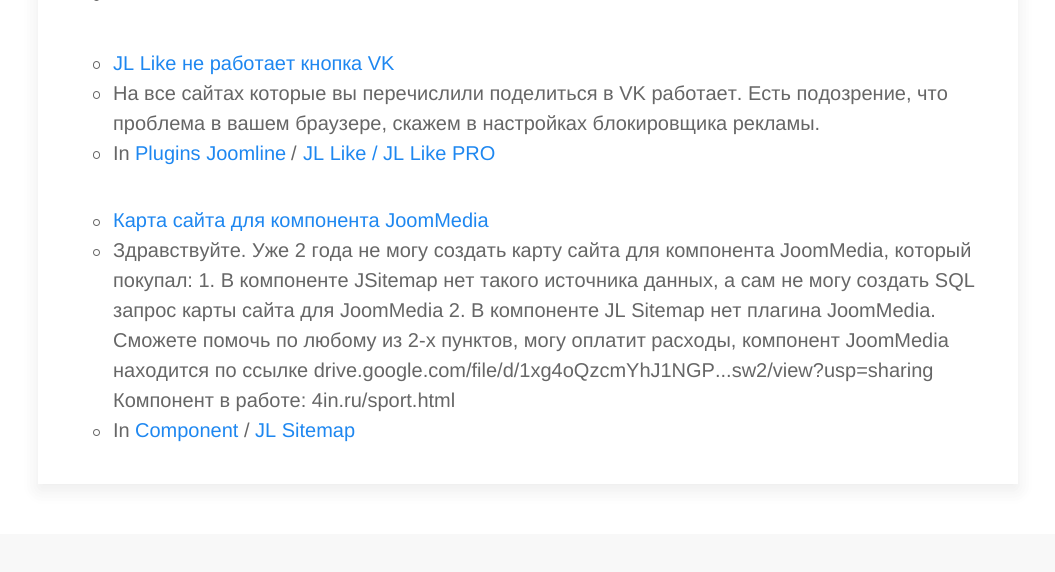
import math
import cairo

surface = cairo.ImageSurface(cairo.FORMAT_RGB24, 1055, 572)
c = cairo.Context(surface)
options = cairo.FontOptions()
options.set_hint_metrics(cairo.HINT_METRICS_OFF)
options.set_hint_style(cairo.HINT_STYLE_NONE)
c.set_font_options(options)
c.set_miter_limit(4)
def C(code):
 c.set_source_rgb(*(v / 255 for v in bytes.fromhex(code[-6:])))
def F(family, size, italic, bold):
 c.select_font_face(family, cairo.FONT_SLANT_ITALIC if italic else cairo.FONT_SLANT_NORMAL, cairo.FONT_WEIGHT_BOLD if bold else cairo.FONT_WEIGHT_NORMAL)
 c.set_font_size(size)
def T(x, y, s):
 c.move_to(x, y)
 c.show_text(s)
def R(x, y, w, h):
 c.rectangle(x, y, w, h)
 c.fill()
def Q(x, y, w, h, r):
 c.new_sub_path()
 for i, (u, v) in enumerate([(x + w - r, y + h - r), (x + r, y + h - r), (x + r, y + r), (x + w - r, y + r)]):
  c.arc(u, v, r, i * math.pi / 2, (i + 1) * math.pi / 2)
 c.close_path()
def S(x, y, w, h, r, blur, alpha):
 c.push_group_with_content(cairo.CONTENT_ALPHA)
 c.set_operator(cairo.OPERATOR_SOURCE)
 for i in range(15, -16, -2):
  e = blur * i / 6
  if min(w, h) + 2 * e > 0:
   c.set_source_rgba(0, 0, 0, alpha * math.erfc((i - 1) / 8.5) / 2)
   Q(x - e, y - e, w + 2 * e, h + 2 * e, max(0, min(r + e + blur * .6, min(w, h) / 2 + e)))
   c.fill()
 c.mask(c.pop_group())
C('ffffff')
c.paint()
C('000000')
S(38,-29,980,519,0,9.5,.08)
C('ffffff')
R(38,0,980,484)
Q(93.5,-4.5,6,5,3)
C('666666')
c.set_line_width(1)
c.stroke()
Q(93.5,61.5,6,7,3)
c.stroke()
F('Liberation Sans',20,0,0)
C('1e87f0')
T(113,70,'JL Like не работает кнопка VK')
Q(93.5,91.5,6,7,3)
C('666666')
c.stroke()
T(113,100,'На все сайтах которые вы перечислили поделиться в VK работает. Есть подозрение, что')
T(113,130,'проблема в вашем браузере, скажем в настройках блокировщика рекламы.')
Q(93.5,151.5,6,7,3)
c.stroke()
T(113,160,'In')
C('1e87f0')
T(135,160,'Plugins Joomline')
C('666666')
T(291,160,'/')
C('1e87f0')
T(303,160,'JL Like / JL Like PRO')
c.new_path()
c.arc(96.5,222.5,3,0,2 * math.pi)
C('666666')
c.stroke()
C('1e87f0')
T(113,227,'Карта сайта для компонента JoomMedia')
c.new_path()
c.arc(96.5,252.5,3,0,2 * math.pi)
C('666666')
c.stroke()
T(113,257,'Здравствуйте. Уже 2 года не могу создать карту сайта для компонента JoomMedia, который')
T(113,287,'покупал: 1. В компоненте JSitemap нет такого источника данных, а сам не могу создать SQL')
T(113,317,'запрос карты сайта для JoomMedia 2. В компоненте JL Sitemap нет плагина JoomMedia.')
T(113,347,'Сможете помочь по любому из 2-х пунктов, могу оплатит расходы, компонент JoomMedia')
T(113,377,'находится по ссылке drive.google.com/file/d/1xg4oQzcmYhJ1NGP...sw2/view?usp=sharing')
T(113,407,'Компонент в работе: 4in.ru/sport.html')
c.new_path()
c.arc(96.5,432.5,3,0,2 * math.pi)
c.stroke()
T(113,437,'In')
C('1e87f0')
T(135,437,'Component')
C('666666')
T(244,437,'/')
C('1e87f0')
T(255,437,'JL Sitemap')
C('f8f8f8')
R(0,534,1055,38)
surface.write_to_png('o.png')
